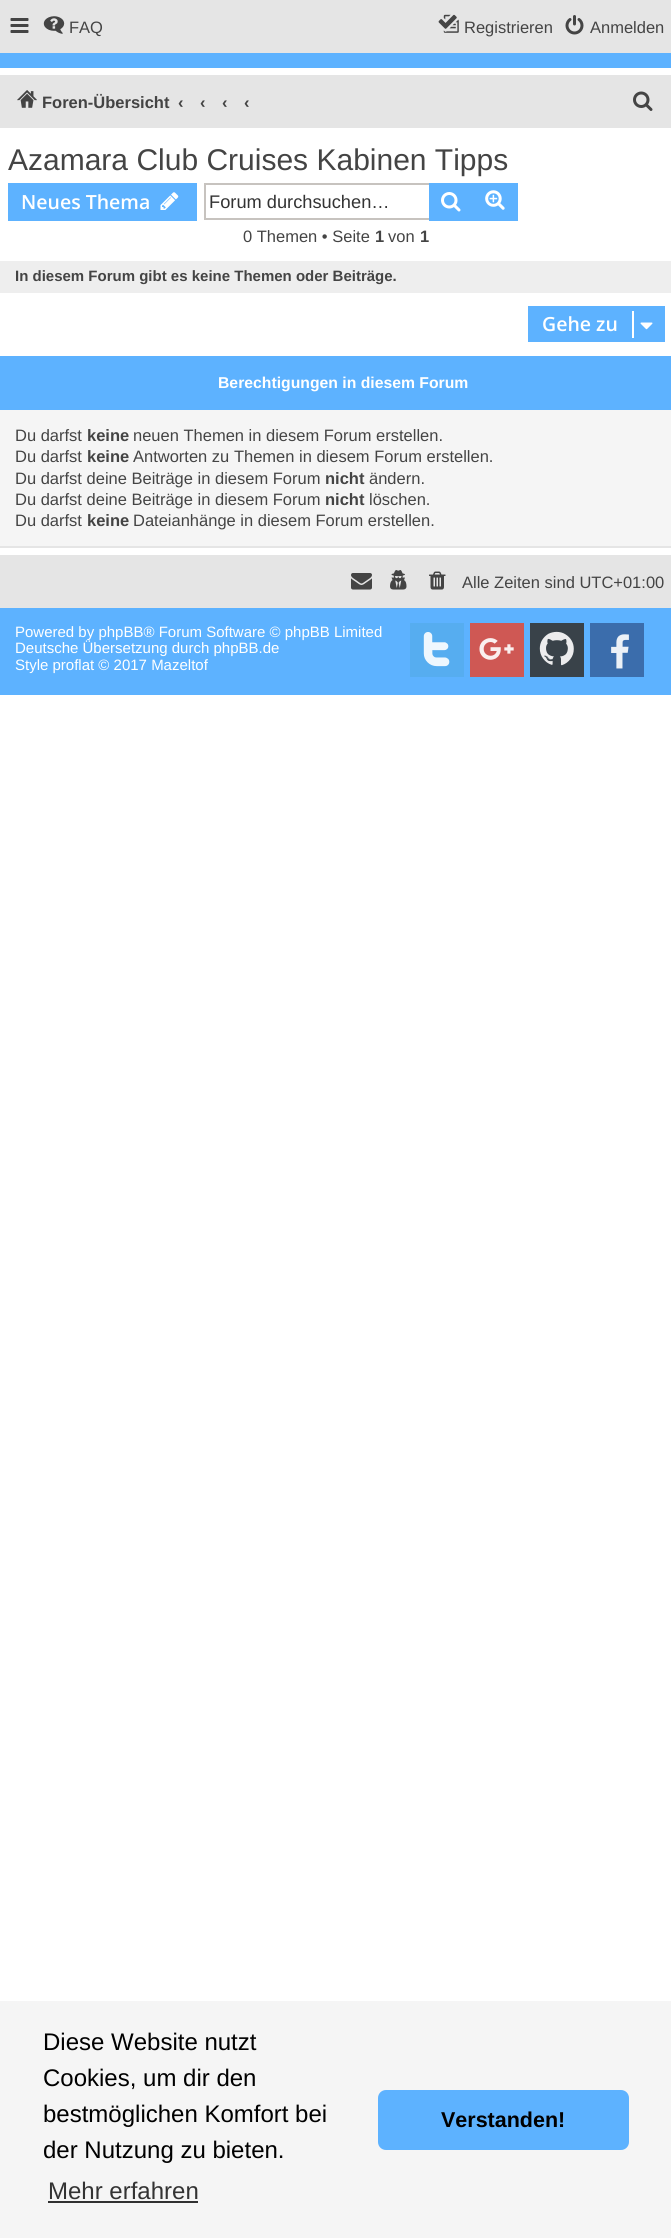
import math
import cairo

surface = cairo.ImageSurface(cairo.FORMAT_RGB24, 671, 2238)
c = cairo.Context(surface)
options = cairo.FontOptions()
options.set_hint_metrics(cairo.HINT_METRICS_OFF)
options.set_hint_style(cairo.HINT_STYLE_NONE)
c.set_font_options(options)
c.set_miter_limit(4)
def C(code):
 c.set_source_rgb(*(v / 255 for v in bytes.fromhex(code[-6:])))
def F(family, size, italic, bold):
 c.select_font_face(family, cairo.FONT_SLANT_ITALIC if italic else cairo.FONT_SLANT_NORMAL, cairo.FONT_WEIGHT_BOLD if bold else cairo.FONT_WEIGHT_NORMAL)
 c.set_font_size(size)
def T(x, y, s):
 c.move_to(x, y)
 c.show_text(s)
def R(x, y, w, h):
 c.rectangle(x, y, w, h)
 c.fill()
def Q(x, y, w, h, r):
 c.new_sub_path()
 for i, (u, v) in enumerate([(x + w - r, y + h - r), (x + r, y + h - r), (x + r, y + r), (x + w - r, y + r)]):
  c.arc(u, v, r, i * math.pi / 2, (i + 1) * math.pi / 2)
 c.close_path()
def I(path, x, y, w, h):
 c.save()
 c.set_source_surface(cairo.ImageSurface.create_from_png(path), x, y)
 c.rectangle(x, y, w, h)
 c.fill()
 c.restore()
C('ffffff')
c.paint()
C('e5e5e5')
R(0,0,671,53)
I('1.png',10,18,19,15)
I('2.png',43,16,22,18)
F('Liberation Sans',16.5,0,0)
C('444444')
T(69,33,'FAQ')
I('3.png',438,14,21,19)
T(464,33,'Registrieren')
I('4.png',565,15,19,20)
T(590,33,'Anmelden')
C('5db2ff')
R(0,53,671,15)
C('e5e5e5')
R(0,75,671,53)
I('5.png',17,90,20,18)
F('Liberation Sans',16.5,0,1)
C('444444')
T(42,108,'Foren-Übersicht')
T(178,108,'‹')
T(200,108,'‹')
T(222,108,'‹')
T(244,108,'‹')
I('6.png',633,91,20,20)
F('Liberation Sans',30,0,0)
T(8,170,'Azamara Club Cruises Kabinen Tipps')
C('5db2ff')
R(8,183,189,38)
F('Open Sans SemiBold',19.5,0,0)
C('ffffff')
T(21,209,'Neues Thema')
I('7.png',160,192,19,18)
C('c7c3bf')
R(204,183,225,2)
R(204,218,225,2)
R(204,183,2,36)
F('Liberation Sans',18.25,0,0)
C('333333')
T(209,208,'Forum durchsuchen…')
C('5db2ff')
R(429,183,45,38)
I('8.png',441,192,20,20)
R(474,185,42,34)
R(474,183,44,2)
R(516,183,2,38)
R(474,219,44,2)
I('9.png',485,190,20,20)
F('Liberation Sans',16.5,0,0)
C('444444')
T(243,242,'0 Themen • Seite')
F('Liberation Sans',16.5,0,1)
T(375,242,'1')
F('Liberation Sans',16.5,0,0)
T(388,242,'von')
F('Liberation Sans',16.5,0,1)
T(420,242,'1')
C('eeeeee')
R(0,261,671,32)
F('Liberation Sans',15,0,1)
C('444444')
T(15,281,'In diesem Forum gibt es keine Themen oder Beiträge.')
C('5db2ff')
R(528,306,137,36)
F('Open Sans SemiBold',19.5,0,0)
C('ffffff')
T(542,331,'Gehe zu')
R(632,311,2,27)
I('10.png',640,322,13,8)
C('5db2ff')
R(0,356,671,54)
F('Liberation Sans',15.75,0,1)
C('ffffff')
T(218,388,'Berechtigungen in diesem Forum')
C('f5f5f5')
R(0,410,671,136)
C('e5e5e5')
R(0,546,671,2)
F('Liberation Sans',16.5,0,0)
C('444444')
T(15,441,'Du darfst')
F('Liberation Sans',16.5,0,1)
T(87,441,'keine')
F('Liberation Sans',16.5,0,0)
T(133,441,'neuen Themen in diesem Forum erstellen.')
T(15,462,'Du darfst')
F('Liberation Sans',16.5,0,1)
T(87,462,'keine')
F('Liberation Sans',16.5,0,0)
T(133,462,'Antworten zu Themen in diesem Forum erstellen.')
T(15,484,'Du darfst deine Beiträge in diesem Forum')
F('Liberation Sans',16.5,0,1)
T(325,484,'nicht')
F('Liberation Sans',16.5,0,0)
T(369,484,'ändern.')
T(15,505,'Du darfst deine Beiträge in diesem Forum')
F('Liberation Sans',16.5,0,1)
T(325,505,'nicht')
F('Liberation Sans',16.5,0,0)
T(369,505,'löschen.')
T(15,526,'Du darfst')
F('Liberation Sans',16.5,0,1)
T(87,526,'keine')
F('Liberation Sans',16.5,0,0)
T(133,526,'Dateianhänge in diesem Forum erstellen.')
C('e5e5e5')
R(0,555,671,53)
I('11.png',351,573,21,17)
I('12.png',390,570,17,20)
I('13.png',429,571,17,19)
C('444444')
T(462,588,'Alle Zeiten sind UTC+01:00')
C('5db2ff')
R(0,608,671,87)
F('Liberation Sans',15,0,0)
C('ffffff')
T(15,637,'Powered by phpBB® Forum Software © phpBB Limited')
T(15,653,'Deutsche Übersetzung durch phpBB.de')
T(15,670,'Style proflat © 2017 Mazeltof')
C('56adf0')
R(410,623,54,54)
I('14.png',423,632,27,35)
C('cf5854')
R(470,623,54,54)
I('15.png',479,638,35,22)
C('394249')
R(530,623,54,54)
I('16.png',539,631,35,35)
C('3b6dac')
R(590,623,54,54)
I('17.png',611,634,18,35)
C('f5f5f5')
R(0,2001,671,237)
F('Liberation Sans',24,0,0)
C('000000')
T(43,2050,'Diese Website nutzt')
T(43,2086,'Cookies, um dir den')
T(43,2122,'bestmöglichen Komfort bei')
T(43,2158,'der Nutzung zu bieten.')
C('333333')
T(48,2199,'Mehr erfahren')
C('313131')
R(48,2201,150,2)
C('5db2ff')
Q(378,2090,251,60,8)
c.fill()
F('Liberation Sans',21.5,0,1)
C('000000')
T(441,2127,'Verstanden!')
surface.write_to_png('o.png')
